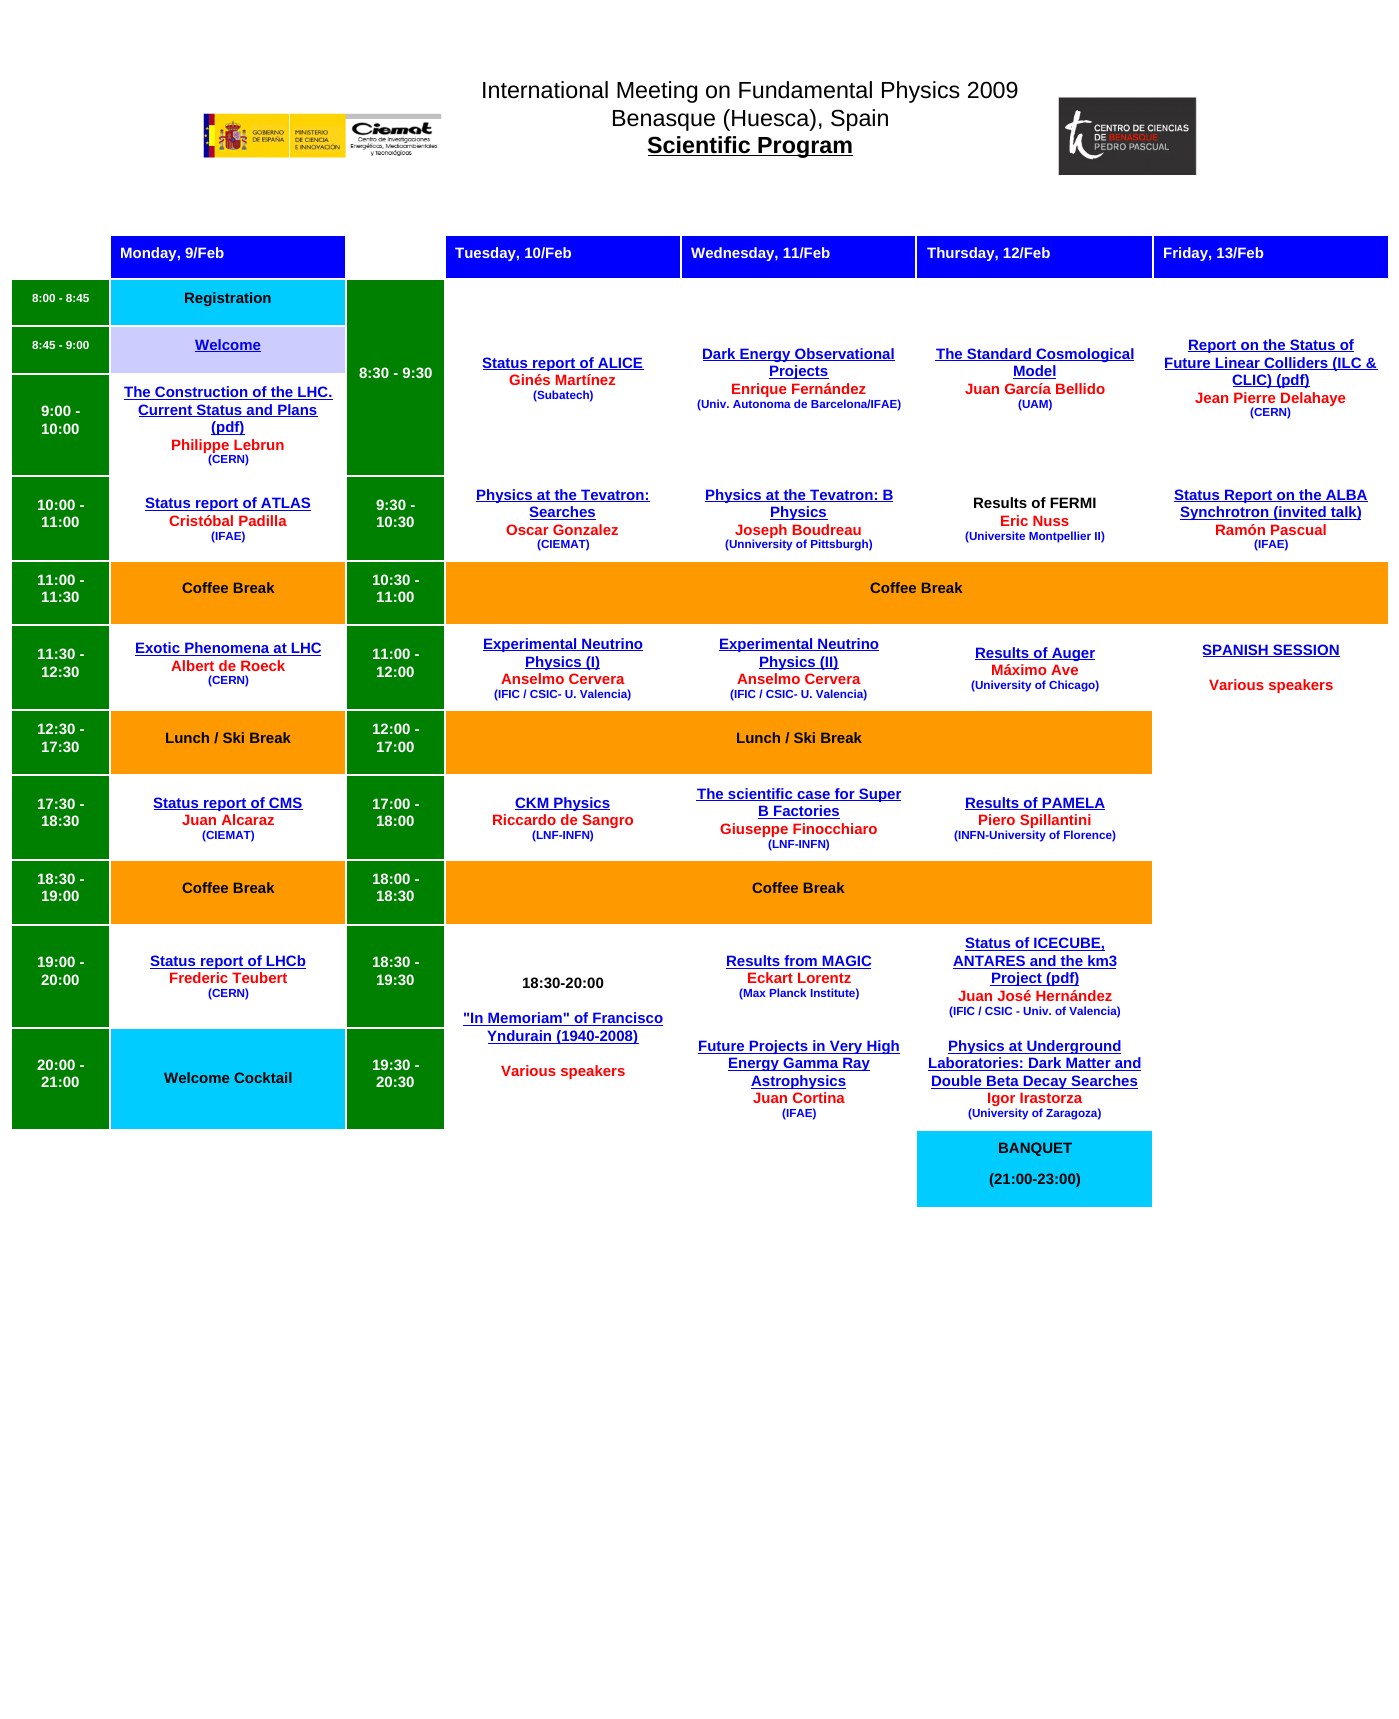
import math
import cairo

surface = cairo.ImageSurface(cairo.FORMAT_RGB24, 1399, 1719)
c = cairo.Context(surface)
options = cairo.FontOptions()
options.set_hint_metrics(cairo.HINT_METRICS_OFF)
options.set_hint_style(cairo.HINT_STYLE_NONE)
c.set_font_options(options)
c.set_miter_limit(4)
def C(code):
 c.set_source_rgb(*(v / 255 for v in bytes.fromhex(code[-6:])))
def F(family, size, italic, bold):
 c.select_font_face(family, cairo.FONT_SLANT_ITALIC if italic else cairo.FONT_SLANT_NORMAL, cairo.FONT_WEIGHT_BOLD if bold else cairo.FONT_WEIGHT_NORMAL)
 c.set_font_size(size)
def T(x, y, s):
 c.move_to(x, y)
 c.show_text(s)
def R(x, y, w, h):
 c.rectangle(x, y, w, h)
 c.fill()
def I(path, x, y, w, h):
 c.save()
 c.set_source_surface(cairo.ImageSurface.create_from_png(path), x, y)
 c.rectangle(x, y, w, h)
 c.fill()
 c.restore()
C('ffffff')
c.paint()
I('1.png',203,113,239,45)
F('Liberation Sans',23.3,0,0)
C('000000')
T(481,98,'International Meeting on Fundamental Physics 2009')
T(611,126,'Benasque (Huesca), Spain')
R(648,155,205,1)
F('Liberation Sans',23.3,0,1)
T(647,153,'Scientific Program')
I('2.png',1058,97,139,78)
C('0000ff')
R(111,236,234,42)
F('Liberation Sans',15,0,1)
C('ffffff')
T(120,258,'Monday, 9/Feb')
C('0000ff')
R(446,236,234,42)
C('ffffff')
T(455,258,'Tuesday, 10/Feb')
C('0000ff')
R(682,236,233,42)
C('ffffff')
T(691,258,'Wednesday, 11/Feb')
C('0000ff')
R(917,236,235,42)
C('ffffff')
T(927,258,'Thursday, 12/Feb')
C('0000ff')
R(1154,236,234,42)
C('ffffff')
T(1163,258,'Friday, 13/Feb')
C('008000')
R(12,280,97,45)
F('Liberation Sans',11.7,0,1)
C('ffffff')
T(32,302,'8:00 - 8:45')
C('00ccff')
R(111,280,234,45)
F('Liberation Sans',15,0,1)
C('000000')
T(184,303,'Registration')
C('008000')
R(347,280,97,195)
C('ffffff')
T(359,378,'8:30 - 9:30')
C('0000ee')
R(483,369,161,1)
T(482,368,'Status report of ALICE')
C('ff0000')
T(509,385,'Ginés Martínez')
F('Liberation Sans',11.7,0,1)
C('0000ff')
T(533,399,'(Subatech)')
C('0000ee')
R(703,360,192,1)
F('Liberation Sans',15,0,1)
T(702,359,'Dark Energy Observational')
R(769,378,60,1)
T(769,376,'Projects')
C('ff0000')
T(731,394,'Enrique Fernández')
F('Liberation Sans',11.7,0,1)
C('0000ff')
T(697,408,'(Univ. Autonoma de Barcelona/IFAE)')
C('0000ee')
R(935,360,199,1)
F('Liberation Sans',15,0,1)
T(936,359,'The Standard Cosmological')
T(1013,376,'Model')
R(1013,378,43,1)
C('ff0000')
T(965,394,'Juan García Bellido')
F('Liberation Sans',11.7,0,1)
C('0000ff')
T(1018,408,'(UAM)')
C('0000ee')
R(1188,351,166,1)
F('Liberation Sans',15,0,1)
T(1188,350,'Report on the Status of')
R(1165,369,213,1)
T(1164,368,'Future Linear Colliders (ILC &')
R(1233,386,77,1)
T(1232,385,'CLIC) (pdf)')
C('ff0000')
T(1195,403,'Jean Pierre Delahaye')
F('Liberation Sans',11.7,0,1)
C('0000ff')
T(1250,416,'(CERN)')
C('008000')
R(12,327,97,46)
C('ffffff')
T(32,349,'8:45 - 9:00')
C('ccccff')
R(111,327,234,46)
F('Liberation Sans',15,0,1)
C('0000ee')
T(195,350,'Welcome')
R(195,351,66,1)
C('008000')
R(12,375,97,100)
C('ffffff')
T(41,416,'9:00 -')
T(41,434,'10:00')
C('0000ee')
T(124,397,'The Construction of the LHC.')
R(124,399,209,1)
T(138,415,'Current Status and Plans')
R(139,416,179,1)
R(211,434,34,1)
T(211,432,'(pdf)')
C('ff0000')
T(171,450,'Philippe Lebrun')
F('Liberation Sans',11.7,0,1)
C('0000ff')
T(208,463,'(CERN)')
C('008000')
R(12,477,97,83)
F('Liberation Sans',15,0,1)
C('ffffff')
T(37,510,'10:00 -')
T(41,527,'11:00')
C('0000ee')
R(145,510,166,1)
T(145,508,'Status report of ATLAS')
C('ff0000')
T(169,526,'Cristóbal Padilla')
F('Liberation Sans',11.7,0,1)
C('0000ff')
T(211,540,'(IFAE)')
C('008000')
R(347,477,97,83)
F('Liberation Sans',15,0,1)
C('ffffff')
T(376,510,'9:30 -')
T(376,527,'10:30')
C('0000ee')
R(476,501,174,1)
T(476,500,'Physics at the Tevatron:')
T(529,517,'Searches')
R(530,519,66,1)
C('ff0000')
T(506,535,'Oscar Gonzalez')
F('Liberation Sans',11.7,0,1)
C('0000ff')
T(537,548,'(CIEMAT)')
C('0000ee')
R(705,501,188,1)
F('Liberation Sans',15,0,1)
T(705,500,'Physics at the Tevatron: B')
R(770,519,58,1)
T(770,517,'Physics')
C('ff0000')
T(735,535,'Joseph Boudreau')
F('Liberation Sans',11.7,0,1)
C('0000ff')
T(725,548,'(Unniversity of Pittsburgh)')
F('Liberation Sans',15,0,1)
C('000000')
T(973,508,'Results of FERMI')
C('ff0000')
T(1000,526,'Eric Nuss')
F('Liberation Sans',11.7,0,1)
C('0000ff')
T(965,540,'(Universite Montpellier II)')
C('0000ee')
R(1174,501,194,1)
F('Liberation Sans',15,0,1)
T(1174,500,'Status Report on the ALBA')
R(1180,519,181,1)
T(1180,517,'Synchrotron (invited talk)')
C('ff0000')
T(1215,535,'Ramón Pascual')
F('Liberation Sans',11.7,0,1)
C('0000ff')
T(1254,548,'(IFAE)')
C('008000')
R(12,562,97,62)
F('Liberation Sans',15,0,1)
C('ffffff')
T(37,585,'11:00 -')
T(41,602,'11:30')
C('ff9900')
R(111,562,234,62)
C('000000')
T(182,593,'Coffee Break')
C('008000')
R(347,562,97,62)
C('ffffff')
T(372,585,'10:30 -')
T(376,602,'11:00')
C('ff9900')
R(446,562,942,62)
C('000000')
T(870,593,'Coffee Break')
C('008000')
R(12,626,97,83)
C('ffffff')
T(37,659,'11:30 -')
T(41,677,'12:30')
C('0000ee')
T(135,653,'Exotic Phenomena at LHC')
R(135,655,186,1)
C('ff0000')
T(171,671,'Albert de Roeck')
F('Liberation Sans',11.7,0,1)
C('0000ff')
T(208,684,'(CERN)')
C('008000')
R(347,626,97,83)
F('Liberation Sans',15,0,1)
C('ffffff')
T(372,659,'11:00 -')
T(376,677,'12:00')
C('0000ee')
R(483,650,160,1)
T(483,649,'Experimental Neutrino')
R(525,668,75,1)
T(525,667,'Physics (I)')
C('ff0000')
T(501,684,'Anselmo Cervera')
F('Liberation Sans',11.7,0,1)
C('0000ff')
T(494,698,'(IFIC / CSIC- U. Valencia)')
C('0000ee')
R(719,650,160,1)
F('Liberation Sans',15,0,1)
T(719,649,'Experimental Neutrino')
R(759,668,80,1)
T(759,667,'Physics (II)')
C('ff0000')
T(737,684,'Anselmo Cervera')
F('Liberation Sans',11.7,0,1)
C('0000ff')
T(730,698,'(IFIC / CSIC- U. Valencia)')
C('0000ee')
R(975,659,120,1)
F('Liberation Sans',15,0,1)
T(975,658,'Results of Auger')
C('ff0000')
T(991,675,'Máximo Ave')
F('Liberation Sans',11.7,0,1)
C('0000ff')
T(971,689,'(University of Chicago)')
F('Liberation Sans',15,0,1)
C('0000ee')
T(1202,655,'SPANISH SESSION')
R(1203,656,137,1)
C('ff0000')
T(1209,690,'Various speakers')
C('008000')
R(12,711,97,63)
C('ffffff')
T(37,734,'12:30 -')
T(41,752,'17:30')
C('ff9900')
R(111,711,234,63)
C('000000')
T(165,743,'Lunch / Ski Break')
C('008000')
R(347,711,97,63)
C('ffffff')
T(372,734,'12:00 -')
T(376,752,'17:00')
C('ff9900')
R(446,711,706,63)
C('000000')
T(736,743,'Lunch / Ski Break')
C('008000')
R(12,776,97,83)
C('ffffff')
T(37,809,'17:30 -')
T(41,826,'18:30')
C('0000ee')
R(154,809,149,1)
T(153,808,'Status report of CMS')
C('ff0000')
T(182,825,'Juan Alcaraz')
F('Liberation Sans',11.7,0,1)
C('0000ff')
T(202,839,'(CIEMAT)')
C('008000')
R(347,776,97,83)
F('Liberation Sans',15,0,1)
C('ffffff')
T(372,809,'17:00 -')
T(376,826,'18:00')
C('0000ee')
R(515,809,95,1)
T(515,808,'CKM Physics')
C('ff0000')
T(492,825,'Riccardo de Sangro')
F('Liberation Sans',11.7,0,1)
C('0000ff')
T(532,839,'(LNF-INFN)')
C('0000ee')
R(696,800,205,1)
F('Liberation Sans',15,0,1)
T(697,799,'The scientific case for Super')
T(758,816,'B Factories')
R(758,818,82,1)
C('ff0000')
T(720,834,'Giuseppe Finocchiaro')
F('Liberation Sans',11.7,0,1)
C('0000ff')
T(768,848,'(LNF-INFN)')
F('Liberation Sans',15,0,1)
C('0000ee')
T(965,808,'Results of PAMELA')
R(965,809,140,1)
C('ff0000')
T(978,825,'Piero Spillantini')
F('Liberation Sans',11.7,0,1)
C('0000ff')
T(954,839,'(INFN-University of Florence)')
C('008000')
R(12,861,97,63)
F('Liberation Sans',15,0,1)
C('ffffff')
T(37,884,'18:30 -')
T(41,901,'19:00')
C('ff9900')
R(111,861,234,63)
C('000000')
T(182,893,'Coffee Break')
C('008000')
R(347,861,97,63)
C('ffffff')
T(372,884,'18:00 -')
T(376,901,'18:30')
C('ff9900')
R(446,861,706,63)
C('000000')
T(752,893,'Coffee Break')
C('008000')
R(12,926,97,101)
C('ffffff')
T(37,967,'19:00 -')
T(41,985,'20:00')
C('0000ee')
R(150,968,156,1)
T(150,966,'Status report of LHCb')
C('ff0000')
T(169,983,'Frederic Teubert')
F('Liberation Sans',11.7,0,1)
C('0000ff')
T(208,997,'(CERN)')
C('008000')
R(347,926,97,101)
F('Liberation Sans',15,0,1)
C('ffffff')
T(372,967,'18:30 -')
T(376,985,'19:30')
C('0000ee')
T(726,966,'Results from MAGIC')
R(726,968,145,1)
C('ff0000')
T(747,983,'Eckart Lorentz')
F('Liberation Sans',11.7,0,1)
C('0000ff')
T(739,997,'(Max Planck Institute)')
C('0000ee')
R(965,950,140,1)
F('Liberation Sans',15,0,1)
T(965,948,'Status of ICECUBE,')
T(953,966,'ANTARES and the km3')
R(953,968,163,1)
R(990,985,89,1)
T(991,983,'Project (pdf)')
C('ff0000')
T(958,1001,'Juan José Hernández')
F('Liberation Sans',11.7,0,1)
C('0000ff')
T(949,1015,'(IFIC / CSIC - Univ. of Valencia)')
F('Liberation Sans',15,0,1)
C('000000')
T(522,988,'18:30-20:00')
C('0000ee')
T(463,1023,'"In Memoriam" of Francisco')
R(463,1025,200,1)
R(488,1043,151,1)
T(487,1041,'Yndurain (1940-2008)')
C('ff0000')
T(501,1076,'Various speakers')
C('008000')
R(12,1029,97,100)
C('ffffff')
T(37,1070,'20:00 -')
T(41,1087,'21:00')
C('00ccff')
R(111,1029,234,100)
C('000000')
T(164,1083,'Welcome Cocktail')
C('008000')
R(347,1029,97,100)
C('ffffff')
T(372,1070,'19:30 -')
T(376,1087,'20:30')
C('0000ee')
R(698,1053,202,1)
T(698,1051,'Future Projects in Very High')
R(728,1070,142,1)
T(728,1068,'Energy Gamma Ray')
R(751,1088,95,1)
T(751,1086,'Astrophysics')
C('ff0000')
T(753,1103,'Juan Cortina')
F('Liberation Sans',11.7,0,1)
C('0000ff')
T(782,1117,'(IFAE)')
C('0000ee')
R(948,1053,173,1)
F('Liberation Sans',15,0,1)
T(948,1051,'Physics at Underground')
T(928,1068,'Laboratories: Dark Matter and')
R(928,1070,213,1)
R(931,1088,207,1)
T(931,1086,'Double Beta Decay Searches')
C('ff0000')
T(987,1103,'Igor Irastorza')
F('Liberation Sans',11.7,0,1)
C('0000ff')
T(968,1117,'(University of Zaragoza)')
C('00ccff')
R(917,1131,235,76)
F('Liberation Sans',15,0,1)
C('000000')
T(998,1153,'BANQUET')
T(989,1184,'(21:00-23:00)')
surface.write_to_png('o.png')
